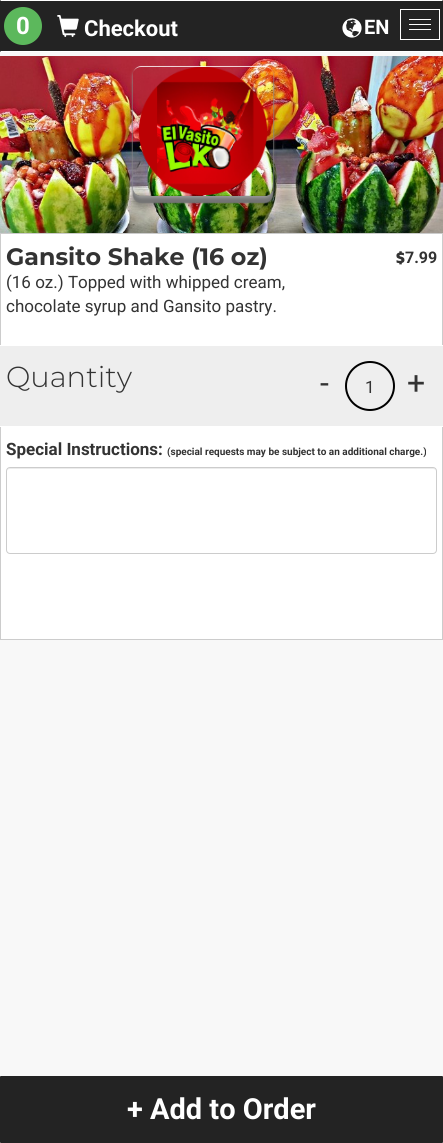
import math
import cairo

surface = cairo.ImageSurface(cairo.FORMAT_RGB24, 443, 1143)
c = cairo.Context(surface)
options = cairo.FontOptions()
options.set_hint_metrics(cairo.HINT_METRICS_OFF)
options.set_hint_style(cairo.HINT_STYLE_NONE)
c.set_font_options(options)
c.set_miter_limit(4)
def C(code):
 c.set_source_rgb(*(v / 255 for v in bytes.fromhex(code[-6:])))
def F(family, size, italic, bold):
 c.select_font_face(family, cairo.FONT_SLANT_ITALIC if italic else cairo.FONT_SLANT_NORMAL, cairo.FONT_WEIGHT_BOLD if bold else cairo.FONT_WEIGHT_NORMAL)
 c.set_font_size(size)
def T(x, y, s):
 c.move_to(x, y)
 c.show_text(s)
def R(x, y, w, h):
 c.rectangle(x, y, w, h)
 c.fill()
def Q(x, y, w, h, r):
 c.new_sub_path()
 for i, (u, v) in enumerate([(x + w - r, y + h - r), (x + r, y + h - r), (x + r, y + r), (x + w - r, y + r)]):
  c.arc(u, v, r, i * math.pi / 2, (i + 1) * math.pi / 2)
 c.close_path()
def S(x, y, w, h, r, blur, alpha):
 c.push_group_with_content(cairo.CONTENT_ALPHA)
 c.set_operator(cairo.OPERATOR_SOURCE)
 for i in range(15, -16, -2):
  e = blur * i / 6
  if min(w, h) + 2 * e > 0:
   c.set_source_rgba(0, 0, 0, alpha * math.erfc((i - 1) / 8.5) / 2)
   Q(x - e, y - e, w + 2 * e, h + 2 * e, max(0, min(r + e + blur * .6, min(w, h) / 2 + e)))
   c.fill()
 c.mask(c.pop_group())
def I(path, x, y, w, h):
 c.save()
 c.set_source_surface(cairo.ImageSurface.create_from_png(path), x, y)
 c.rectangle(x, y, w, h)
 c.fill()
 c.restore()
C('f8f8f8')
c.paint()
C('232323')
R(0,0,443,52)
C('ffffff')
c.new_path()
c.move_to(0,0)
c.line_to(443,0)
c.line_to(442,1)
c.line_to(1,1)
c.close_path()
c.fill()
c.new_path()
c.move_to(443,52)
c.line_to(0,52)
c.line_to(1,51)
c.line_to(442,51)
c.close_path()
c.fill()
C('5cb85c')
c.arc(23,26,19,0,2 * math.pi)
c.fill()
F('Roboto',24,0,1)
C('ffffff')
T(16,34,'0')
I('1.png',57,15,22,22)
F('Roboto',22,0,1)
T(84,36,'Checkout')
I('2.png',342,18,20,20)
F('Roboto',20,0,1)
T(364,34,'EN')
c.rectangle(400.5,9.5,39,30)
c.set_line_width(1)
c.stroke()
R(409,19,22,1)
R(409,24,22,1)
R(409,29,22,1)
I('3.png',0,56,443,177)
c.save()
c.set_fill_rule(cairo.FILL_RULE_EVEN_ODD)
c.new_path()
c.move_to(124,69)
c.line_to(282,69)
c.line_to(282,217)
c.line_to(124,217)
c.close_path()
c.move_to(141,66)
c.line_to(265,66)
c.curve_to(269.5,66,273,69.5,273,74)
c.line_to(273,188)
c.curve_to(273,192.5,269.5,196,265,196)
c.line_to(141,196)
c.curve_to(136.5,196,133,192.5,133,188)
c.line_to(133,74)
c.curve_to(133,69.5,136.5,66,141,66)
c.close_path()
c.clip()
C('000000')
S(133,78,140,130,8,2.5,.2)
c.restore()
c.save()
c.set_fill_rule(cairo.FILL_RULE_EVEN_ODD)
c.new_path()
c.move_to(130,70)
c.line_to(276,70)
c.line_to(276,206)
c.line_to(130,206)
c.close_path()
c.move_to(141,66)
c.line_to(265,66)
c.curve_to(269.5,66,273,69.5,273,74)
c.line_to(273,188)
c.curve_to(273,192.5,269.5,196,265,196)
c.line_to(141,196)
c.curve_to(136.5,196,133,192.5,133,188)
c.line_to(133,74)
c.curve_to(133,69.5,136.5,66,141,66)
c.close_path()
c.clip()
C('737373')
S(133,73,140,130,8,.5,1)
c.restore()
c.save()
c.set_fill_rule(cairo.FILL_RULE_EVEN_ODD)
c.new_path()
c.move_to(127,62)
c.line_to(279,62)
c.line_to(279,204)
c.line_to(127,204)
c.close_path()
c.move_to(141,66)
c.line_to(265,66)
c.curve_to(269.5,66,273,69.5,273,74)
c.line_to(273,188)
c.curve_to(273,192.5,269.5,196,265,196)
c.line_to(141,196)
c.curve_to(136.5,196,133,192.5,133,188)
c.line_to(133,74)
c.curve_to(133,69.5,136.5,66,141,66)
c.close_path()
c.clip()
C('999999')
S(133,68,140,130,8,1.5,1)
c.restore()
I('4.png',139,67,128,128)
c.set_source_rgba(1,1,1,0.8)
c.new_path()
c.move_to(141,66)
c.curve_to(137,66,133,70,133,74)
c.curve_to(133,70,137,67,141,67)
c.line_to(265,67)
c.curve_to(269,67,273,70,273,74)
c.curve_to(273,70,269,66,265,66)
c.close_path()
c.fill()
c.set_source_rgba(0,0,0,0.1)
c.new_path()
c.move_to(265,196)
c.curve_to(269,196,273,192,273,188)
c.curve_to(273,192,269,195,265,195)
c.line_to(141,195)
c.curve_to(137,195,133,192,133,188)
c.curve_to(133,192,137,196,141,196)
c.close_path()
c.fill()
C('ffffff')
c.rectangle(.5,233.5,442,406)
c.fill_preserve()
C('cccccc')
c.stroke()
F('Montserrat',23.75,0,1)
C('333333')
T(6,265,'Gansito Shake (16 oz)')
F('Roboto',17,0,0)
T(6,288,'(16 oz.) Topped with whipped cream,')
T(6,312,'chocolate syrup and Gansito pastry.')
F('Kanit',16,0,1)
T(396,263,'$')
F('Roboto',16,0,1)
T(405,263,'7.99')
C('eeeeee')
R(0,346,443,80)
C('ffffff')
R(0,345,443,1)
R(0,426,443,1)
F('Montserrat Light',29,0,0)
C('333333')
T(6,387,'Quantity')
F('Roboto',32,0,0)
T(320,394,'-')
c.new_path()
c.arc(370,386,24,0,2 * math.pi)
C('000000')
c.set_line_width(2)
c.stroke()
F('Roboto',17,0,0)
C('333333')
T(365,393,'1')
F('Roboto',32,0,0)
T(407,394,'+')
F('Roboto',17,0,1)
T(6,455,'Special Instructions:')
F('Roboto',10,0,1)
T(167,455,'(special requests may be subject to an additional charge.)')
C('ececec')
c.new_path()
c.move_to(10,469)
c.line_to(433,469)
c.curve_to(435,469,436,470,436,472)
c.curve_to(436,470,435,468,433,468)
c.line_to(10,468)
c.curve_to(8,468,7,470,7,472)
c.curve_to(7,470,8,469,10,469)
c.close_path()
c.fill()
Q(6.5,467.5,430,86,3.5)
C('cccccc')
c.set_line_width(1)
c.stroke()
C('232323')
Q(0,1076,443,67,1)
c.fill()
F('Roboto',29,0,1)
C('ffffff')
T(127,1119,'+ Add to Order')
surface.write_to_png('o.png')
